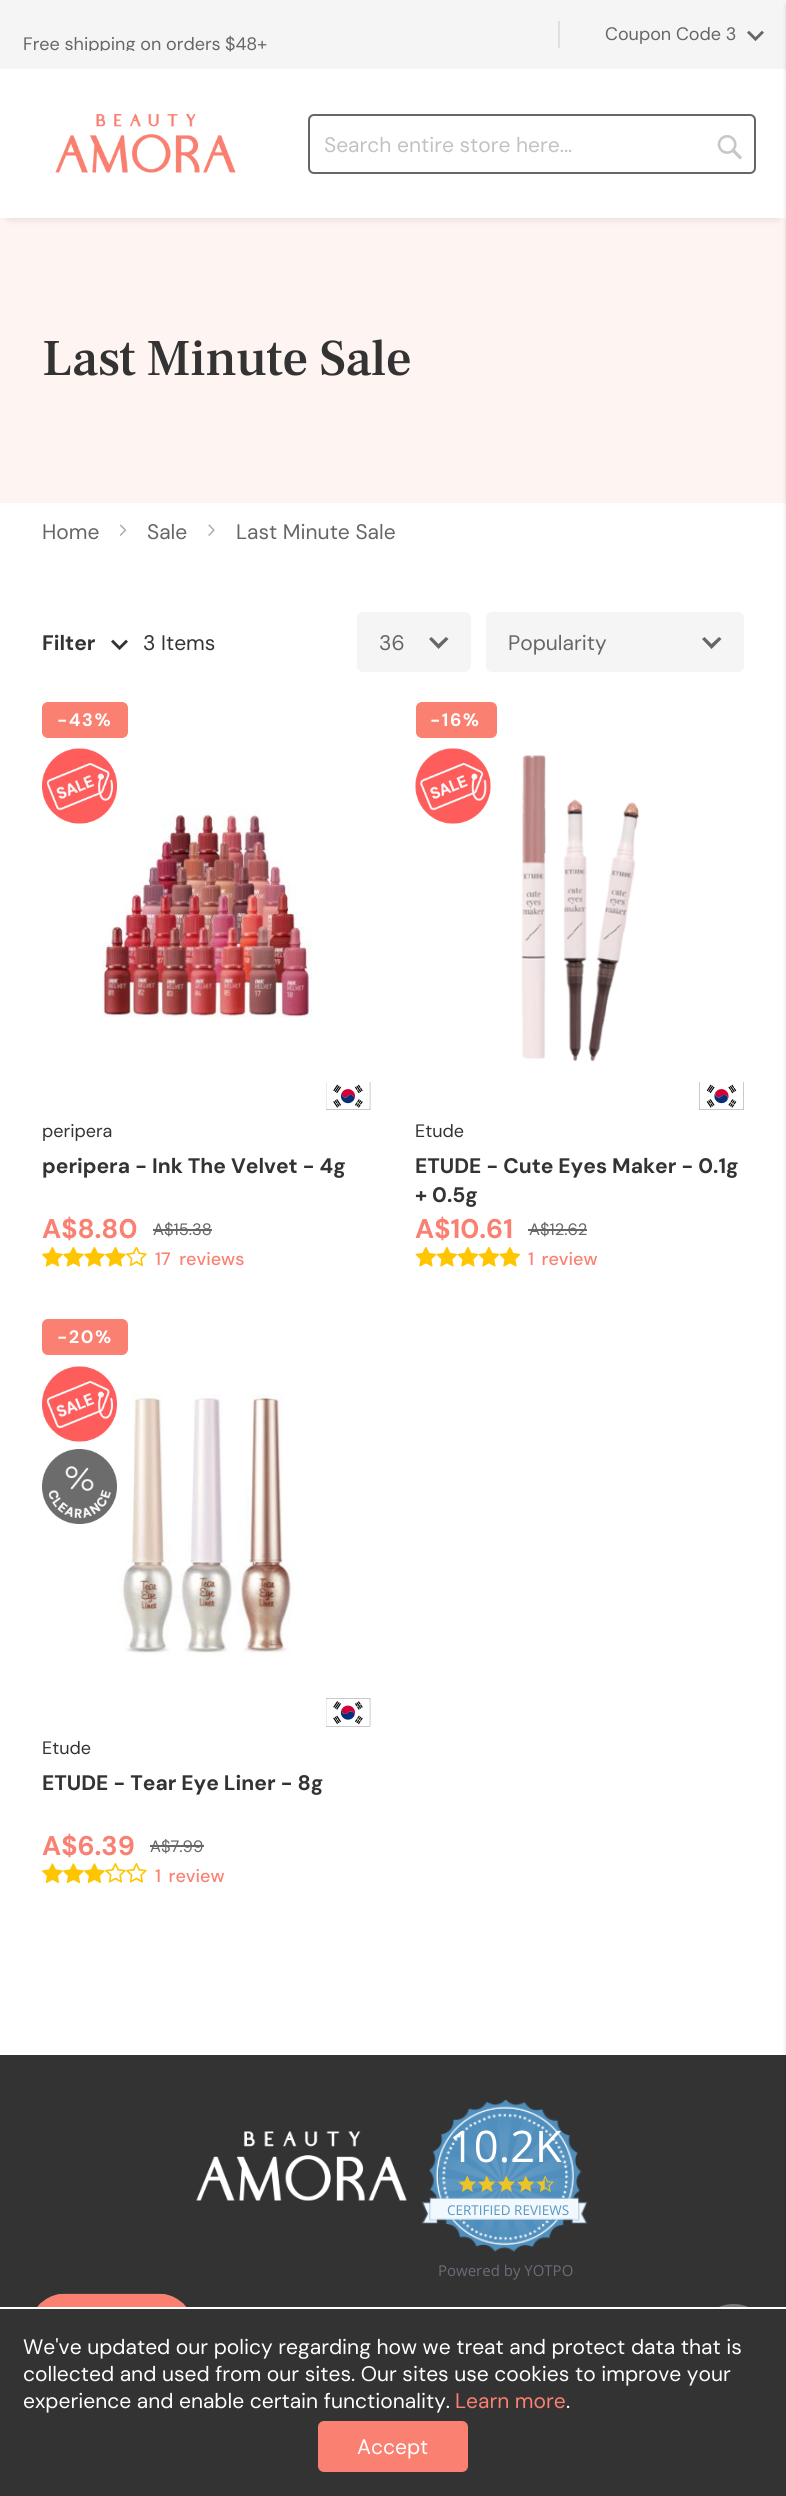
import math
import cairo

surface = cairo.ImageSurface(cairo.FORMAT_RGB24, 786, 2496)
c = cairo.Context(surface)
options = cairo.FontOptions()
options.set_hint_metrics(cairo.HINT_METRICS_OFF)
options.set_hint_style(cairo.HINT_STYLE_NONE)
c.set_font_options(options)
c.set_miter_limit(4)
def C(code):
 c.set_source_rgb(*(v / 255 for v in bytes.fromhex(code[-6:])))
def F(family, size, italic, bold):
 c.select_font_face(family, cairo.FONT_SLANT_ITALIC if italic else cairo.FONT_SLANT_NORMAL, cairo.FONT_WEIGHT_BOLD if bold else cairo.FONT_WEIGHT_NORMAL)
 c.set_font_size(size)
def T(x, y, s):
 c.move_to(x, y)
 c.show_text(s)
def L(x, y, s, letter, word):
 c.move_to(x, y)
 for ch in s:
  c.show_text(ch)
  c.rel_move_to(letter + word * (ch == ' '), 0)
def R(x, y, w, h):
 c.rectangle(x, y, w, h)
 c.fill()
def Q(x, y, w, h, r):
 c.new_sub_path()
 for i, (u, v) in enumerate([(x + w - r, y + h - r), (x + r, y + h - r), (x + r, y + r), (x + w - r, y + r)]):
  c.arc(u, v, r, i * math.pi / 2, (i + 1) * math.pi / 2)
 c.close_path()
def S(x, y, w, h, r, blur, alpha):
 c.push_group_with_content(cairo.CONTENT_ALPHA)
 c.set_operator(cairo.OPERATOR_SOURCE)
 for i in range(15, -16, -2):
  e = blur * i / 6
  if min(w, h) + 2 * e > 0:
   c.set_source_rgba(0, 0, 0, alpha * math.erfc((i - 1) / 8.5) / 2)
   Q(x - e, y - e, w + 2 * e, h + 2 * e, max(0, min(r + e + blur * .6, min(w, h) / 2 + e)))
   c.fill()
 c.mask(c.pop_group())
def I(path, x, y, w, h):
 c.save()
 c.set_source_surface(cairo.ImageSurface.create_from_png(path), x, y)
 c.rectangle(x, y, w, h)
 c.fill()
 c.restore()
C('ffffff')
c.paint()
C('f5f5f5')
R(0,0,786,69)
c.save()
c.rectangle(23,20,513,31)
c.clip()
F('DM Sans',18,0,0)
C('666666')
T(23,50,'Free shipping on orders')
c.restore()
F('DM Sans',18,0,0)
C('666666')
T(225,50,'$48+')
C('dfdfdf')
R(558,21,2,27)
C('666666')
T(605,40,'Coupon Code 3')
I('1.png',747,30,17,11)
C('fef5f3')
R(0,218,786,285)
C('000000')
S(9,87,768,131,0,4.5,.15)
C('ffffff')
R(2,80,782,138)
I('2.png',55,114,181,59)
Q(309,115,446,58,5)
C('666666')
c.stroke()
F('DM Sans',21,0,0)
C('c2c2c2')
T(324,152,'Search entire store here...')
I('3.png',717,135,25,25)
C('333333')
R(0,2055,786,252)
C('000000')
S(786,5,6,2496,0,2,.15)
F('Frank Ruhl Libre Medium',51.5,0,0)
C('333333')
L(42,375,'Last Minute Sale',-.75,0)
F('DM Sans',21,0,0)
C('666666')
T(42,539,'Home')
I('4.png',119,524,8,12)
T(147,539,'Sale')
I('5.png',208,524,7,12)
T(236,539,'Last Minute Sale')
F('DM Sans',21,0,1)
C('333333')
T(42,650,'Filter')
I('6.png',111,639,17,12)
F('DM Sans',21,0,0)
T(143,650,'3 Items')
C('f5f5f5')
Q(357,612,114,60,6)
c.fill()
C('666666')
T(379,650,'36')
c.new_path()
c.move_to(446,637)
c.line_to(438.5,644)
c.line_to(431.5,637)
c.line_to(429,639)
c.line_to(438.5,649)
c.line_to(448.5,639)
c.close_path()
c.fill()
C('f5f5f5')
Q(486,612,258,60,6)
c.fill()
C('666666')
T(508,650,'Popularity')
c.new_path()
c.move_to(719,637)
c.line_to(711.5,644)
c.line_to(704.5,637)
c.line_to(702,639)
c.line_to(711.5,649)
c.line_to(721.5,639)
c.close_path()
c.fill()
C('fa8072')
Q(42,702,86,36,6)
c.fill()
F('DM Sans',18,0,1)
C('ffffff')
L(57,726,'-43%',1.5,0)
F('DM Sans',27,0,1)
C('fa8072')
T(42,1238,'A$8.80')
F('DM Sans',16.5,0,0)
C('666666')
T(153,1235,'A$15.38')
R(153,1229,59,2)
F('DM Sans',18,0,0)
C('333333')
T(42,1137,'peripera')
F('DM Sans',21,0,1)
T(42,1173,'peripera - Ink The Velvet - 4g')
I('8.png',102,807,211,211)
I('7.png',42,748,75,76)
I('9.png',326,1082,45,28)
I('10.png',42,1247,21,20)
I('10.png',63,1247,21,20)
I('10.png',84,1247,21,20)
I('10.png',105,1247,21,20)
I('11.png',126,1247,21,20)
F('DM Sans Medium',18,0,0)
C('fa8072')
L(155,1265,'17 reviews',0,4)
Q(416,702,81,36,6)
c.fill()
F('DM Sans',18,0,1)
C('ffffff')
L(430,726,'-16%',1.5,0)
F('DM Sans',27,0,1)
C('fa8072')
T(415,1238,'A$10.61')
F('DM Sans',16.5,0,0)
C('666666')
T(529,1235,'A$12.62')
R(528,1229,59,2)
F('DM Sans',18,0,0)
C('333333')
T(415,1137,'Etude')
F('DM Sans',21,0,1)
T(415,1173,'ETUDE - Cute Eyes Maker - 0.1g')
T(415,1202,'+ 0.5g')
I('12.png',415,748,76,76)
I('13.png',521,755,118,307)
I('14.png',699,1082,45,28)
I('15.png',415,1247,22,20)
I('16.png',436,1247,22,20)
I('16.png',457,1247,22,20)
I('16.png',478,1247,22,20)
I('16.png',499,1247,22,20)
F('DM Sans Medium',18,0,0)
C('fa8072')
L(528,1265,'1 review',0,3)
Q(42,1319,86,36,6)
c.fill()
F('DM Sans',18,0,1)
C('ffffff')
L(57,1343,'-20%',1.5,0)
F('DM Sans',27,0,1)
C('fa8072')
T(42,1855,'A$6.39')
F('DM Sans',16.5,0,0)
C('666666')
T(150,1852,'A$7.99')
R(150,1845,54,2)
F('DM Sans',18,0,0)
C('333333')
T(42,1754,'Etude')
F('DM Sans',21,0,1)
T(42,1790,'ETUDE - Tear Eye Liner - 8g')
I('7.png',42,1366,75,76)
I('17.png',42,1449,75,75)
I('18.png',117,1394,177,261)
I('19.png',326,1698,45,29)
I('20.png',42,1863,21,20)
I('20.png',63,1863,21,20)
I('20.png',84,1863,21,20)
I('21.png',105,1863,21,20)
I('21.png',126,1863,21,20)
F('DM Sans Medium',18,0,0)
C('fa8072')
L(155,1882,'1 review',0,3)
I('22.png',196,2131,211,70)
I('23.png',421,2100,167,152)
F('Open Sans',43.5,0,0)
C('ffffff')
T(449,2162,'10.2K')
I('24.png',458,2175,18,17)
I('25.png',478,2175,18,17)
I('26.png',497,2175,18,17)
I('27.png',517,2175,18,17)
I('28.png',536,2175,18,17)
F('Open Sans',13.5,0,0)
C('5997c1')
T(447,2215,'CERTIFIED REVIEWS')
F('Open Sans',15,0,0)
C('6a6c77')
T(438,2276,'Powered by YOTPO')
c.set_source_rgba(0.533,0.533,0.533,0.8)
c.new_path()
c.arc(733.5,2341.5,37.5,0,2 * math.pi)
c.fill()
I('29.png',37,2293,150,14)
C('333333')
R(0,2309,786,187)
C('ffffff')
R(715,2307,71,2)
F('DM Sans',21,0,0)
T(23,2354,'We\'ve updated our policy regarding how we treat and protect data that is')
T(23,2381,'collected and used from our sites. Our sites use cookies to improve your')
T(23,2408,'experience and enable certain functionality.')
C('fa8072')
T(455,2408,'Learn more')
C('ffffff')
T(566,2408,'.')
C('fa8072')
Q(318,2421,150,51,6)
c.fill()
C('ffffff')
T(357,2454,'Accept')
surface.write_to_png('o.png')
